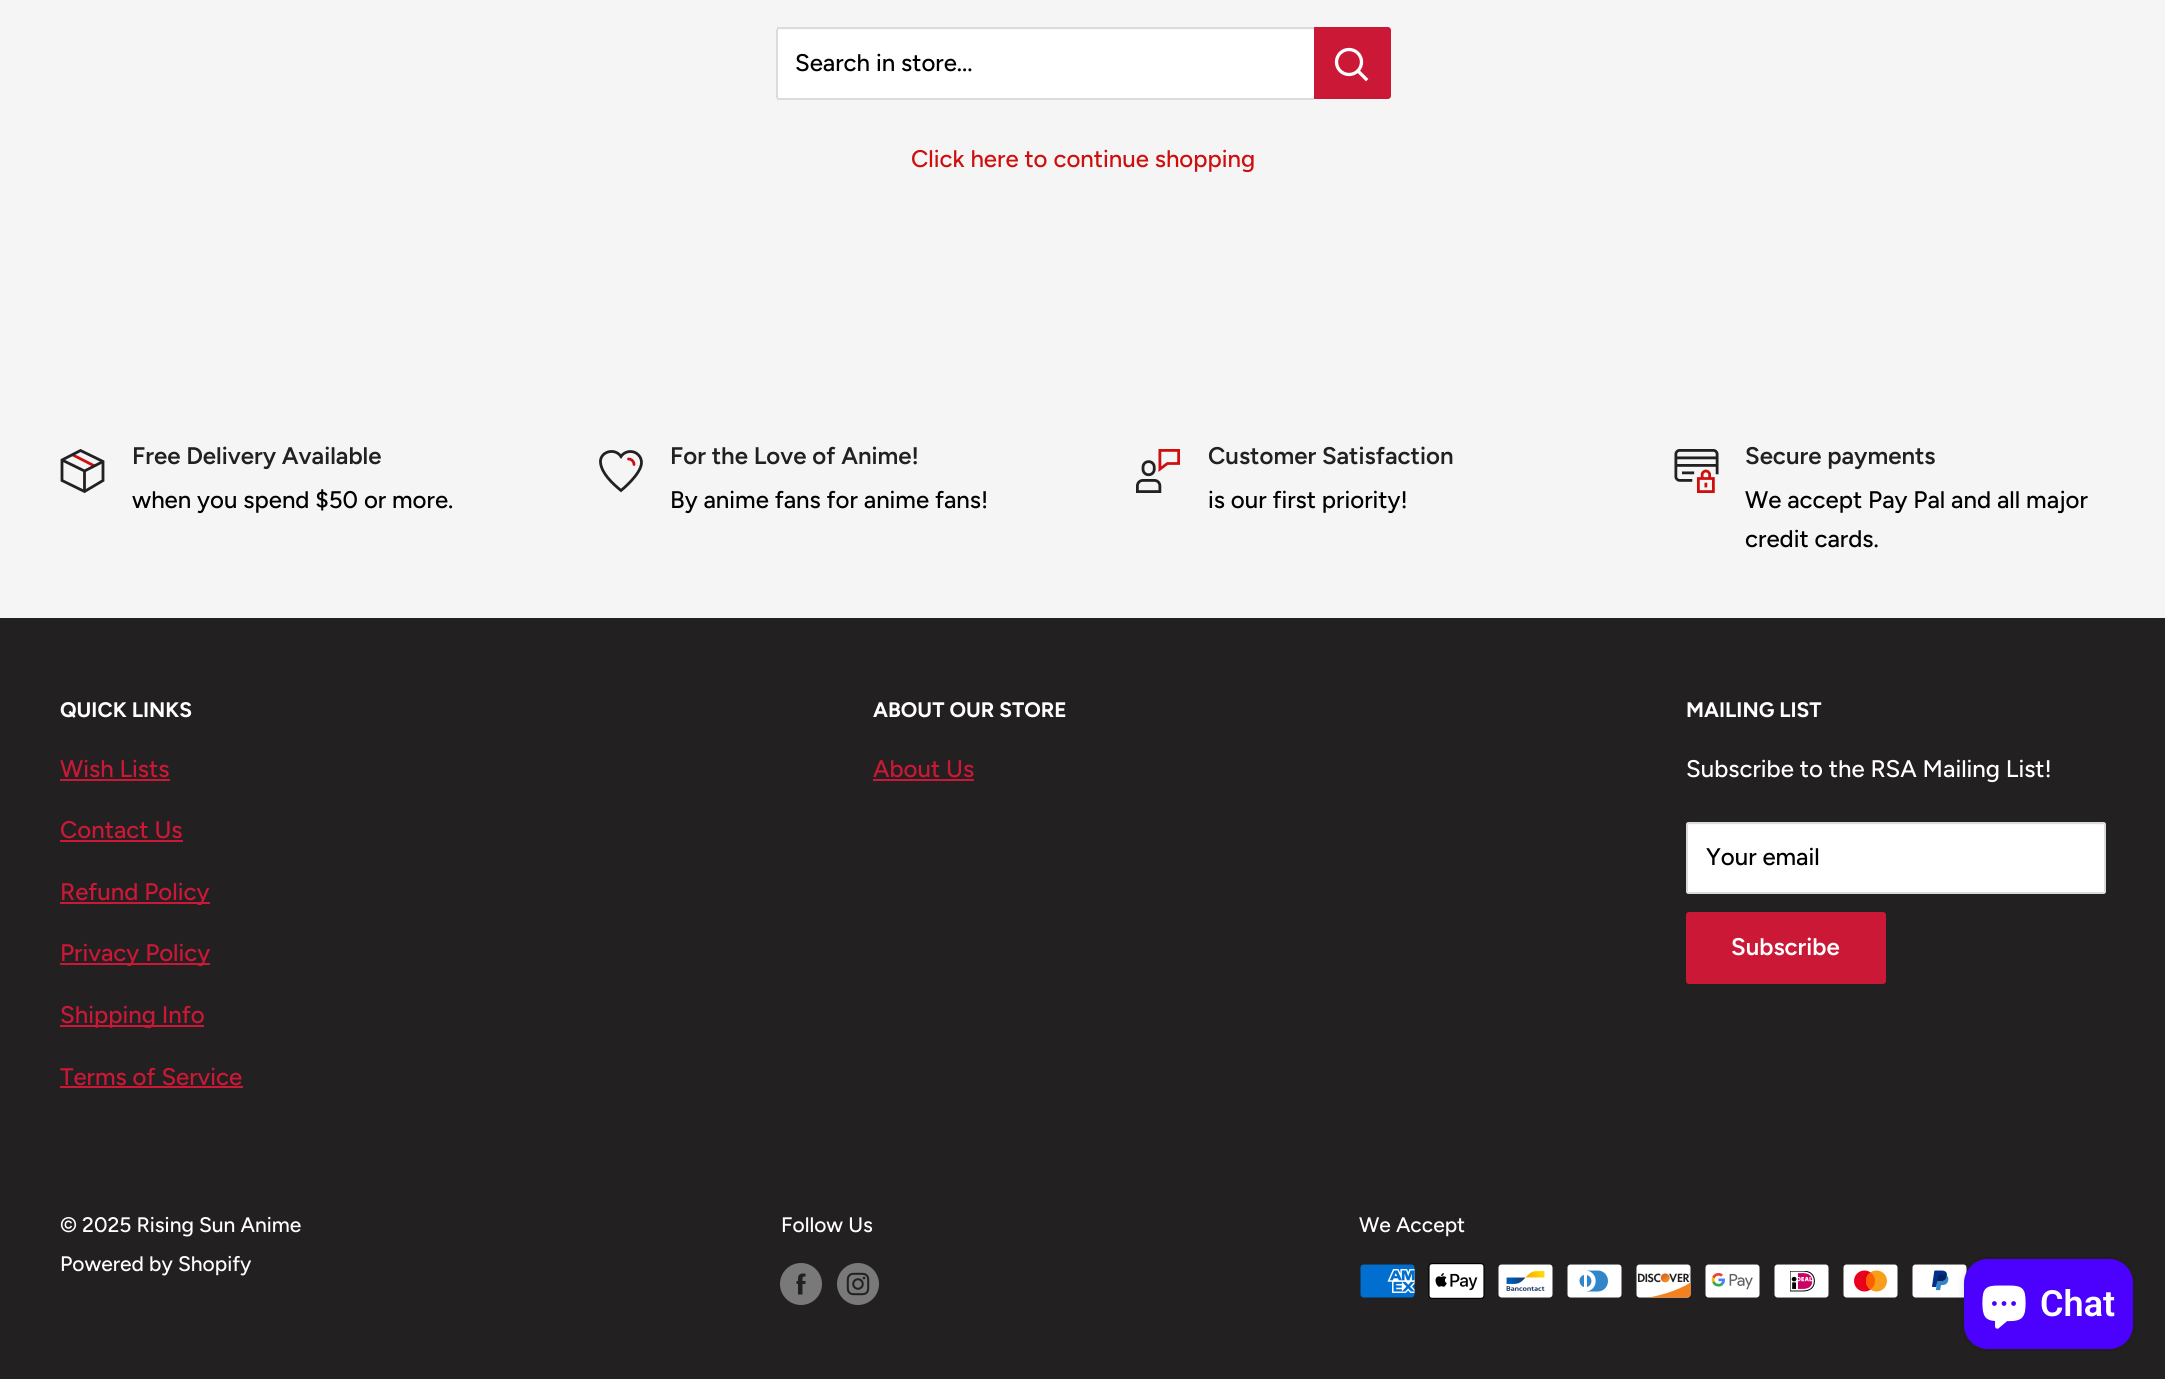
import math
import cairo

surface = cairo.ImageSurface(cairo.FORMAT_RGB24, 2165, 1379)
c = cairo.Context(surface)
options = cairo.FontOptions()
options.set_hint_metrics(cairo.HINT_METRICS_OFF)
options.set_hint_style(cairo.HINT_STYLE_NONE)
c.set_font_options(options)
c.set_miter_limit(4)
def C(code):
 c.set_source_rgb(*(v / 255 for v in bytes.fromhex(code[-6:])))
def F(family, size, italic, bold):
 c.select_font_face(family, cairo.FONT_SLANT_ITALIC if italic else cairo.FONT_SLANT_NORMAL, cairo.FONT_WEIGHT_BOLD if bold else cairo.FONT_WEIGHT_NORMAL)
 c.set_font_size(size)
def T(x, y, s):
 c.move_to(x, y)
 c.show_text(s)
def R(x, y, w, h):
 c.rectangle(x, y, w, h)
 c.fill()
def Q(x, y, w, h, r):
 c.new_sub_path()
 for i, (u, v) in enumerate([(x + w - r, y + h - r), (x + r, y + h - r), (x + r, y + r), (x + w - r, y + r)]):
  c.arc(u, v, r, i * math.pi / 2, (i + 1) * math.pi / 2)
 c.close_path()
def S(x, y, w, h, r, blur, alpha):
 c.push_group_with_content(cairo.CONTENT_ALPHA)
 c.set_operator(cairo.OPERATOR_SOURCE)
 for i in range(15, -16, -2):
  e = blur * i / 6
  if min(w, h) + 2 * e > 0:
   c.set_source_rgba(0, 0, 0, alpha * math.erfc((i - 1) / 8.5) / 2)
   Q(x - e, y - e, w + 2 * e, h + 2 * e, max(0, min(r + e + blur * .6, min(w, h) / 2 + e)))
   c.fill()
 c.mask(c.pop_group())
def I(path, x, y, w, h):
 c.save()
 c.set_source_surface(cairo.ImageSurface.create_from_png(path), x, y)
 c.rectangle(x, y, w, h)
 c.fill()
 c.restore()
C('f5f5f5')
c.paint()
C('ffffff')
c.new_path()
c.move_to(779,27)
c.line_to(1314,27)
c.line_to(1314,99)
c.line_to(779,99)
c.curve_to(777.5,99,776,97.5,776,96)
c.line_to(776,30)
c.curve_to(776,28.5,777.5,27,779,27)
c.close_path()
c.fill()
C('f9f9f9')
c.new_path()
c.move_to(778,30)
c.line_to(1314,30)
c.line_to(1314,29)
c.line_to(778,29)
c.curve_to(777,29,777,31,777,32)
c.close_path()
c.fill()
C('dbdbdb')
R(777,27,537,2)
R(777,98,537,2)
R(776,29,2,69)
F('Figtree Medium',24,0,0)
C('000000')
T(795,71,'Search in store...')
C('cb1836')
c.new_path()
c.move_to(1314,27)
c.line_to(1388,27)
c.curve_to(1389.5,27,1391,28.5,1391,30)
c.line_to(1391,96)
c.curve_to(1391,97.5,1389.5,99,1388,99)
c.line_to(1314,99)
c.close_path()
c.fill()
c.new_path()
c.move_to(1366,79)
c.line_to(1358,71)
C('ffffff')
c.set_line_width(3.3)
c.set_line_cap(cairo.LINE_CAP_SQUARE)
c.stroke()
c.arc(1349,62,12.5,0,2 * math.pi)
c.set_line_cap(cairo.LINE_CAP_BUTT)
c.stroke()
C('cf0e0e')
T(911,167,'Click here to continue shopping')
c.new_path()
c.move_to(72,454.5)
c.line_to(94.5,466)
c.set_line_width(2.8)
c.stroke()
c.new_path()
c.move_to(103,461.5)
c.line_to(84.5,471)
c.line_to(62,460)
c.move_to(84.5,471)
c.line_to(84.5,491.5)
C('222021')
c.stroke()
c.new_path()
c.move_to(103,461.5)
c.line_to(103,480.5)
c.line_to(84.5,491.5)
c.line_to(62,480.5)
c.line_to(62,460)
c.line_to(80.5,450.5)
c.close_path()
c.set_line_cap(cairo.LINE_CAP_SQUARE)
c.stroke()
F('Figtree SemiBold',24,0,0)
T(132,464,'Free Delivery Available')
F('Figtree Medium',24,0,0)
C('000000')
T(132,508,'when you spend $50 or more.')
c.new_path()
c.move_to(630.5,451.5)
c.curve_to(626.5,451.5,623,453.5,621,456.5)
c.curve_to(614.5,447,599.5,452,600.5,462.5)
c.curve_to(601.5,473.5,613,484,621,490.5)
c.curve_to(621,490.5,641.5,474,641.5,462.5)
c.curve_to(641.5,456.5,636.5,451.5,630.5,451.5)
c.close_path()
C('222021')
c.stroke()
c.new_path()
c.move_to(628.5,459)
c.curve_to(631.5,459,634,461.5,634,464.5)
C('cf0e0e')
c.set_line_cap(cairo.LINE_CAP_ROUND)
c.stroke()
F('Figtree SemiBold',24,0,0)
C('222021')
T(670,464,'For the Love of Anime!')
F('Figtree Medium',24,0,0)
C('000000')
T(670,508,'By anime fans for anime fans!')
I('1.png',1136,449,45,44)
F('Figtree SemiBold',24,0,0)
C('222021')
T(1208,464,'Customer Satisfaction')
F('Figtree Medium',24,0,0)
C('000000')
T(1208,508,'is our first priority!')
I('2.png',1674,449,45,44)
F('Figtree SemiBold',24,0,0)
C('222021')
T(1745,464,'Secure payments')
F('Figtree Medium',24,0,0)
C('000000')
T(1745,508,'We accept Pay Pal and all major')
T(1745,547,'credit cards.')
C('222021')
R(0,618,2165,761)
F('Figtree',21,0,1)
C('ffffff')
T(60,717,'QUICK LINKS')
F('Figtree Medium',24,0,0)
C('cb1836')
T(60,777,'Wish Lists')
R(60,779,110,2)
T(60,838,'Contact Us')
R(60,840,123,2)
R(60,902,150,2)
T(60,900,'Refund Policy')
R(60,963,150,2)
T(60,961,'Privacy Policy')
R(60,1025,144,2)
T(60,1023,'Shipping Info')
T(60,1085,'Terms of Service')
R(60,1086,183,2)
F('Figtree',21,0,1)
C('ffffff')
T(873,717,'ABOUT OUR STORE')
F('Figtree Medium',24,0,0)
C('cb1836')
T(873,777,'About Us')
R(873,779,101,2)
F('Figtree',21,0,1)
C('ffffff')
T(1686,717,'MAILING LIST')
F('Figtree Medium',24,0,0)
T(1686,777,'Subscribe to the RSA Mailing List!')
Q(1686,822,420,72,3)
c.fill()
C('f9f9f9')
c.new_path()
c.move_to(1689,825)
c.line_to(2103,825)
c.curve_to(2104,825,2104,826,2104,826)
c.line_to(2104,893)
c.curve_to(2105,893,2105,892,2105,892)
c.line_to(2105,826)
c.curve_to(2105,825,2104,824,2104,824)
c.line_to(1690,824)
c.curve_to(1689,824,1688,825,1688,826)
c.close_path()
c.fill()
Q(1687,823,418,70,2)
C('dbdbdb')
c.set_line_width(2)
c.set_line_cap(cairo.LINE_CAP_BUTT)
c.stroke()
C('000000')
T(1706,865,'Your email')
C('cb1836')
Q(1686,912,200,72,3)
c.fill()
F('Figtree SemiBold',24,0,0)
C('ffffff')
T(1731,955,'Subscribe')
F('Figtree Medium',21,0,0)
T(60,1232,'© 2025 Rising Sun Anime')
T(60,1271,'Powered by Shopify')
T(781,1232,'Follow Us')
I('3.png',780,1263,42,42)
I('4.png',837,1263,42,42)
T(1359,1232,'We Accept')
I('5.png',1360,1264,55,34)
I('6.png',1428,1263,57,36)
I('7.png',1498,1264,55,34)
I('8.png',1567,1264,55,34)
I('9.png',1636,1264,55,34)
I('10.png',1705,1264,55,34)
I('11.png',1774,1264,55,34)
I('12.png',1843,1264,55,34)
I('13.png',1912,1264,55,34)
C('000000')
S(1964,1259,169,90,24,4,.15)
C('4c00fd')
Q(1964,1259,169,90,24)
c.fill()
I('14.png',1982,1285,44,44)
F('Roboto SemiBold',36,0,0)
C('ffffff')
T(2040,1316,'Chat')
surface.write_to_png('o.png')
